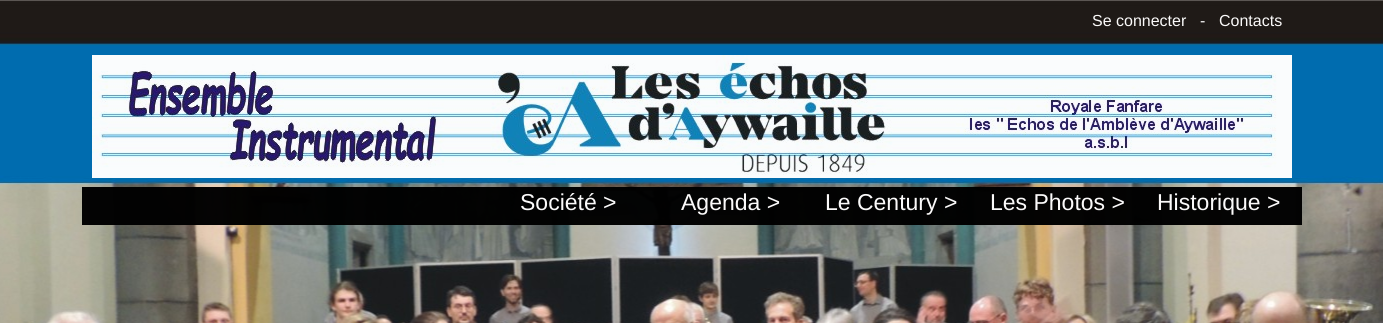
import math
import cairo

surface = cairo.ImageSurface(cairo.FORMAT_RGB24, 1383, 323)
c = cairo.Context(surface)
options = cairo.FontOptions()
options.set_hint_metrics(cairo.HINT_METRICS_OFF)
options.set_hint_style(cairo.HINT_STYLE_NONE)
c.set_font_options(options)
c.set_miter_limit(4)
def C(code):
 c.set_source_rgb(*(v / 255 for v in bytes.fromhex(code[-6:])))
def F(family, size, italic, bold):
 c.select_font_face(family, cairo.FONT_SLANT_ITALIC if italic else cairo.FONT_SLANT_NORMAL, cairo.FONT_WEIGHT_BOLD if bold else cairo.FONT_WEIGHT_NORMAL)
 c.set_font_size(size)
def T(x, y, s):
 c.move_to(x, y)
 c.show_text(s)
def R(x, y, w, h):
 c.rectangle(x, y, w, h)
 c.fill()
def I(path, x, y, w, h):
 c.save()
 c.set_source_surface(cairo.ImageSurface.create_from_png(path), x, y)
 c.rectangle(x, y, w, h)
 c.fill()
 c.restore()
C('ffffff')
c.paint()
I('1.png',0,0,1383,323)
F('Liberation Sans',16,0,0)
C('fbfafa')
T(1092,26,'Se connecter')
T(1200,26,'-')
T(1219,26,'Contacts')
I('2.png',92,55,1200,123)
c.set_source_rgba(0,0,0,0.98)
R(82,187,1220,38)
F('Liberation Sans',23,0,0)
C('fbfafa')
T(520,210,'Société >')
T(681,210,'Agenda >')
T(825,210,'Le Century >')
T(990,210,'Les Photos >')
T(1157,210,'Historique >')
surface.write_to_png('o.png')
